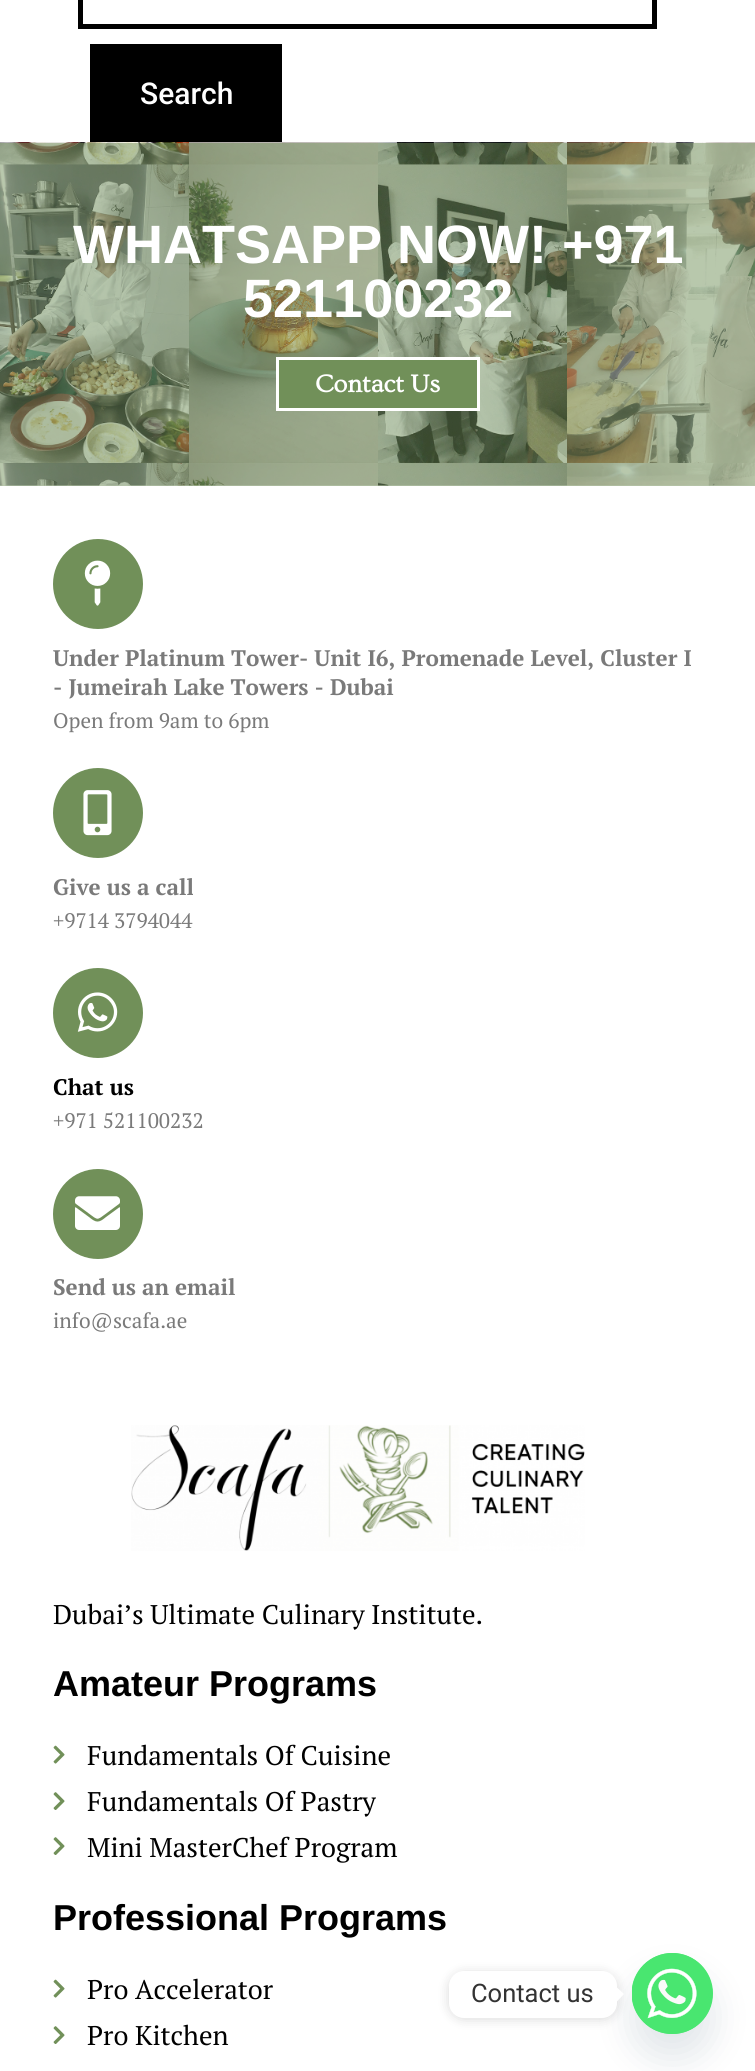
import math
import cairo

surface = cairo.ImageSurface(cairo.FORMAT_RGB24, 755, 2071)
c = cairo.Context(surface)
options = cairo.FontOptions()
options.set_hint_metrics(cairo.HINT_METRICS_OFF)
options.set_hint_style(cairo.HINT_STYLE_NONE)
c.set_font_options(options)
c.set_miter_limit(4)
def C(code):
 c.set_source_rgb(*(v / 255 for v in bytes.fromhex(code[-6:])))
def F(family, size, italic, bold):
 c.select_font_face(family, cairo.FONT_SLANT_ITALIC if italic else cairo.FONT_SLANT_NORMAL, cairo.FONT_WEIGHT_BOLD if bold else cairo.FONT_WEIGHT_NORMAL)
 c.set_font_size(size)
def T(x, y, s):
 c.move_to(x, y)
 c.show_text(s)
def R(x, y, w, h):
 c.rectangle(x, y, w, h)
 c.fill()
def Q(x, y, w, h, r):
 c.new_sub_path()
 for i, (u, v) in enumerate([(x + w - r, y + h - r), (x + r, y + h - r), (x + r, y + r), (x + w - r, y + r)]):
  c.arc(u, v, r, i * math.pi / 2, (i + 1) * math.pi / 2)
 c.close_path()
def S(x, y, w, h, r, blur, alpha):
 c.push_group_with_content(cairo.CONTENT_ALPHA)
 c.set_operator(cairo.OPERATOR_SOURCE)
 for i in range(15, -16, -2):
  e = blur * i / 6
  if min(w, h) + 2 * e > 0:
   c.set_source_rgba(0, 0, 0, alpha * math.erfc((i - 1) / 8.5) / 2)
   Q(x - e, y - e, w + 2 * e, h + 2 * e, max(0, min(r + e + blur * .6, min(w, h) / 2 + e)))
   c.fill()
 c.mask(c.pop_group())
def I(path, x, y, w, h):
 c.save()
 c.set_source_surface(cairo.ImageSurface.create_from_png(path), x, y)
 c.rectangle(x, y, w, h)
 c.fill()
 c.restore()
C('ffffff')
c.paint()
C('b8c8ac')
R(0,485,755,1)
c.rectangle(80.5,-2.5,574,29)
C('000000')
c.set_line_width(5)
c.stroke()
R(90,44,192,98)
F('Roboto Medium',30,0,0)
C('ffffff')
T(140,104,'Search')
I('1.png',0,142,755,344)
F('Liberation Sans',54,0,1)
T(73,263,'WHATSAPP NOW! +971')
T(243,317,'521100232')
C('719059')
c.rectangle(277.5,358.5,201,51)
c.fill_preserve()
C('ffffff')
c.set_line_width(3)
c.stroke()
F('Ovo',25.5,0,1)
T(315,392,'Contact Us')
C('719059')
c.new_path()
c.arc(98,584,45,0,2 * math.pi)
c.fill()
I('2.png',84,560,27,46)
F('PT Serif',22.5,0,1)
C('7a7a7a')
T(53,666,'Under Platinum Tower- Unit I6, Promenade Level, Cluster I')
T(53,695,'- Jumeirah Lake Towers - Dubai')
F('PT Serif',21,0,0)
T(53,728,'Open from 9am to 6pm')
C('719059')
c.new_path()
c.arc(98,813,45,0,2 * math.pi)
c.fill()
I('3.png',83,790,29,46)
F('PT Serif',22.5,0,1)
C('7a7a7a')
T(53,895,'Give us a call')
F('PT Serif',21,0,0)
T(53,928,'+9714 3794044')
C('719059')
c.new_path()
c.arc(98,1013,45,0,2 * math.pi)
c.fill()
I('4.png',77,992,41,40)
F('PT Serif',22.5,0,1)
C('000000')
T(53,1095,'Chat us')
F('PT Serif',21,0,0)
C('7a7a7a')
T(53,1128,'+971 521100232')
C('719059')
c.new_path()
c.arc(98,1214,45,0,2 * math.pi)
c.fill()
I('5.png',75,1196,45,34)
F('PT Serif',22.5,0,1)
C('7a7a7a')
T(53,1295,'Send us an email')
F('PT Serif',21,0,0)
T(53,1328,'info@scafa.ae')
I('6.png',131,1425,454,126)
F('PT Serif',27,0,0)
C('000000')
T(53,1624,'Dubai’s Ultimate Culinary Institute.')
F('Liberation Sans',36,0,1)
T(53,1696,'Amateur Programs')
I('7.png',53,1745,12,19)
F('PT Serif',27,0,0)
T(87,1765,'Fundamentals Of Cuisine')
I('8.png',53,1792,12,18)
T(87,1811,'Fundamentals Of Pastry')
I('8.png',53,1837,12,18)
T(87,1857,'Mini MasterChef Program')
F('Liberation Sans',36,0,1)
T(53,1930,'Professional Programs')
I('7.png',53,1979,12,19)
F('PT Serif',27,0,0)
T(87,1999,'Pro Accelerator')
I('8.png',53,2026,12,18)
T(87,2045,'Pro Kitchen')
C('49687e')
S(632,1977,81,81,40.5,18,.16)
C('49e670')
c.arc(672.5,1993.5,40.5,0,2 * math.pi)
c.fill()
I('9.png',632,1953,81,81)
C('000000')
S(449,1973,168,46,15,6,.15)
C('ffffff')
Q(449,1971,168,47,15)
c.fill()
F('Roboto',25.5,0,0)
C('333333')
T(471,2002,'Contact us')
C('ffffff')
c.new_path()
c.move_to(616.5,2002)
c.line_to(616.5,1987)
c.line_to(624,1994)
c.close_path()
c.fill()
surface.write_to_png('o.png')
